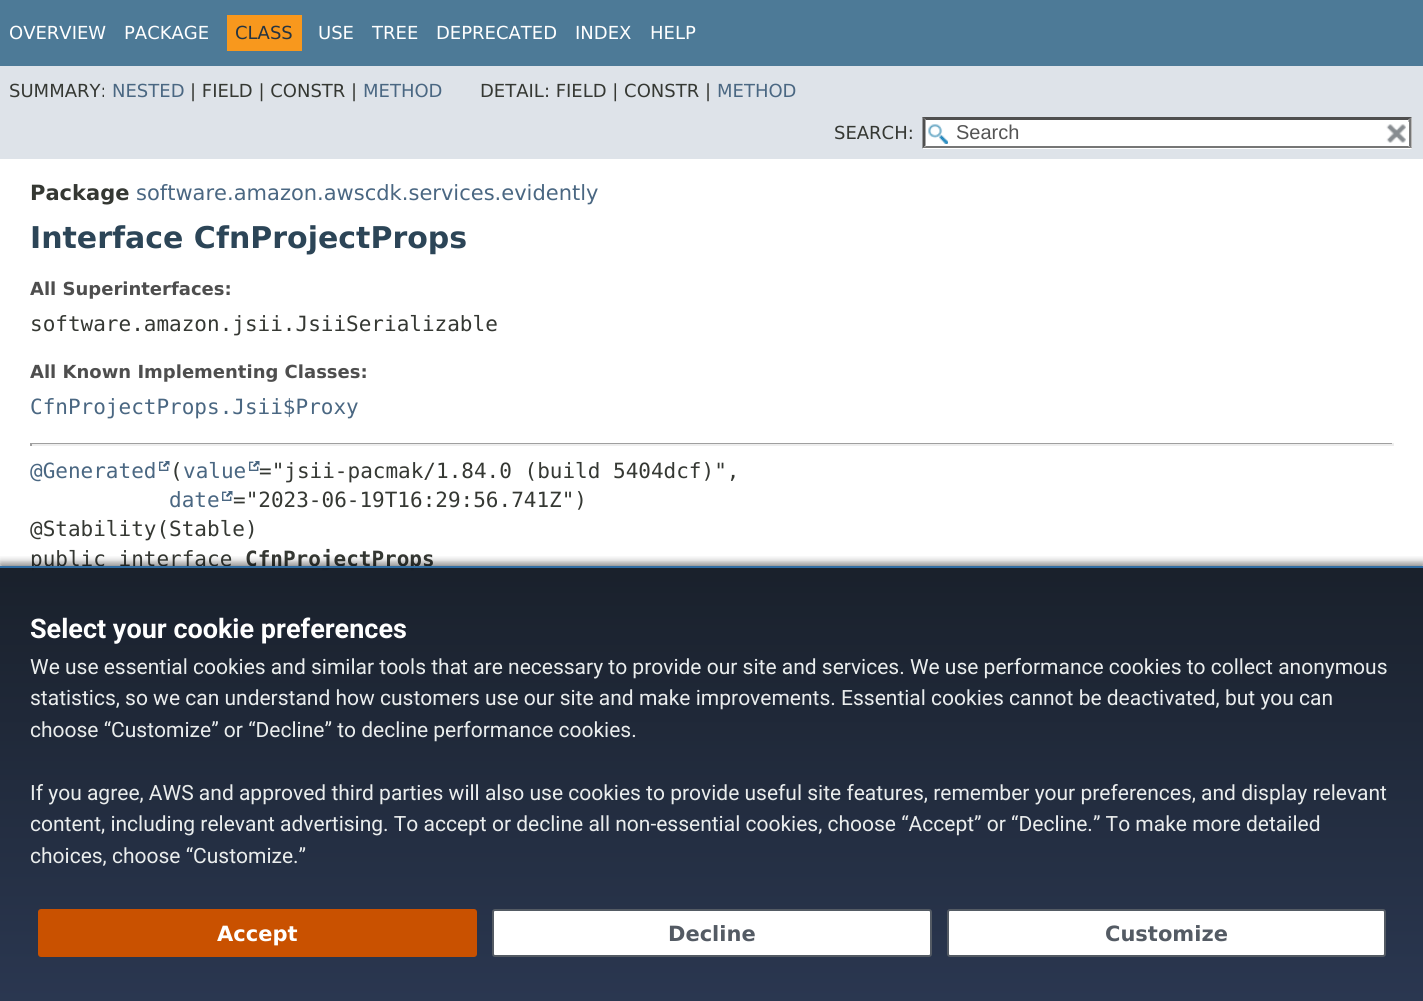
import math
import cairo

surface = cairo.ImageSurface(cairo.FORMAT_RGB24, 1423, 1001)
c = cairo.Context(surface)
options = cairo.FontOptions()
options.set_hint_metrics(cairo.HINT_METRICS_OFF)
options.set_hint_style(cairo.HINT_STYLE_NONE)
c.set_font_options(options)
c.set_miter_limit(4)
def C(code):
 c.set_source_rgb(*(v / 255 for v in bytes.fromhex(code[-6:])))
def F(family, size, italic, bold):
 c.select_font_face(family, cairo.FONT_SLANT_ITALIC if italic else cairo.FONT_SLANT_NORMAL, cairo.FONT_WEIGHT_BOLD if bold else cairo.FONT_WEIGHT_NORMAL)
 c.set_font_size(size)
def T(x, y, s):
 c.move_to(x, y)
 c.show_text(s)
def R(x, y, w, h):
 c.rectangle(x, y, w, h)
 c.fill()
def Q(x, y, w, h, r):
 c.new_sub_path()
 for i, (u, v) in enumerate([(x + w - r, y + h - r), (x + r, y + h - r), (x + r, y + r), (x + w - r, y + r)]):
  c.arc(u, v, r, i * math.pi / 2, (i + 1) * math.pi / 2)
 c.close_path()
def S(x, y, w, h, r, blur, alpha):
 c.push_group_with_content(cairo.CONTENT_ALPHA)
 c.set_operator(cairo.OPERATOR_SOURCE)
 for i in range(15, -16, -2):
  e = blur * i / 6
  if min(w, h) + 2 * e > 0:
   c.set_source_rgba(0, 0, 0, alpha * math.erfc((i - 1) / 8.5) / 2)
   Q(x - e, y - e, w + 2 * e, h + 2 * e, max(0, min(r + e + blur * .6, min(w, h) / 2 + e)))
   c.fill()
 c.mask(c.pop_group())
def I(path, x, y, w, h):
 c.save()
 c.set_source_surface(cairo.ImageSurface.create_from_png(path), x, y)
 c.rectangle(x, y, w, h)
 c.fill()
 c.restore()
C('ffffff')
c.paint()
C('4d7a97')
R(0,0,1423,66)
F('DejaVu Sans',18,0,0)
C('ffffff')
T(9,39,'OVERVIEW')
T(124,39,'PACKAGE')
C('f8981d')
R(227,15,75,36)
C('253441')
T(235,39,'CLASS')
C('ffffff')
T(318,39,'USE')
T(372,39,'TREE')
T(436,39,'DEPRECATED')
T(575,39,'INDEX')
T(650,39,'HELP')
C('dee3e9')
R(0,66,1423,93)
C('353833')
T(9,97,'SUMMARY:')
C('4a6782')
T(112,97,'NESTED')
C('353833')
T(190,97,'| FIELD | CONSTR |')
C('4a6782')
T(363,97,'METHOD')
C('353833')
T(480,97,'DETAIL: FIELD | CONSTR |')
C('4a6782')
T(717,97,'METHOD')
C('353833')
T(834,139,'SEARCH:')
C('ffffff')
R(923,117,489,32)
I('1.png',928,124,20,20)
C('4f4f4f')
c.new_path()
c.move_to(922,117)
c.line_to(1412,117)
c.line_to(1408,120)
c.line_to(926,120)
c.close_path()
c.fill()
C('767676')
c.new_path()
c.move_to(1411.5,117)
c.line_to(1411.5,148.5)
c.line_to(1408.5,145.5)
c.line_to(1408.5,120)
c.close_path()
c.fill()
c.new_path()
c.move_to(1412,148)
c.line_to(922,148)
c.line_to(926,146)
c.line_to(1408,146)
c.close_path()
c.fill()
C('4f4f4f')
c.new_path()
c.move_to(922.5,148.5)
c.line_to(922.5,117)
c.line_to(925.5,120)
c.line_to(925.5,145.5)
c.close_path()
c.fill()
F('Liberation Sans',20,0,0)
C('545454')
T(956,139,'Search')
C('ffffff')
R(1408,122,1,24)
I('2.png',1386,124,20,19)
F('DejaVu Sans',21,0,1)
C('353833')
T(30,200,'Package')
F('DejaVu Sans',21,0,0)
C('4a6782')
T(136,200,'software.amazon.awscdk.services.evidently')
F('DejaVu Sans',30,0,1)
C('2c4557')
T(30,248,'Interface CfnProjectProps')
F('DejaVu Sans',18,0,1)
C('4e4e4e')
T(30,295,'All Superinterfaces:')
F('DejaVu Sans Mono',21,0,0)
C('353833')
T(30,331,'software.amazon.jsii.JsiiSerializable')
F('DejaVu Sans',18,0,1)
C('4e4e4e')
T(30,378,'All Known Implementing Classes:')
F('DejaVu Sans Mono',21,0,0)
C('4a6782')
T(30,414,'CfnProjectProps.Jsii$Proxy')
C('9f9f9f')
R(30,443,1364,1)
C('eeeeee')
R(1392,443,2,3)
R(30,444,1364,2)
C('9f9f9f')
R(30,443,2,3)
C('4a6782')
T(30,478,'@Generated')
I('3.png',159,461,11,10)
C('353833')
T(170,478,'(')
C('4a6782')
T(183,478,'value')
I('3.png',249,461,11,10)
C('353833')
T(259,478,'="jsii-pacmak/1.84.0 (build 5404dcf)",')
C('4a6782')
T(169,507,'date')
I('3.png',222,491,11,10)
C('353833')
T(233,507,'="2023-06-19T16:29:56.741Z")')
T(30,536,'@Stability(Stable)')
T(30,566,'public interface')
F('DejaVu Sans Mono',21,0,1)
T(245,566,'CfnProjectProps')
c.save()
c.rectangle(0,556,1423,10)
c.clip()
C('000000')
S(0,563,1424,436,0,4,.5)
c.restore()
gradient = cairo.LinearGradient(712,567,712,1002)
gradient.add_color_stop_rgba(0,0.082,0.11,0.153,.98)
gradient.add_color_stop_rgba(1,0.149,0.2,0.302,.98)
c.set_source(gradient)
R(0,568,1423,433)
C('306da3')
R(0,566,1423,2)
F('Roboto',27,0,1)
C('ffffff')
T(30,638,'Select your cookie preferences')
F('Roboto',21,0,0)
C('eaeded')
T(30,674,'We use essential cookies and similar tools that are necessary to provide our site and services. We use performance cookies to collect anonymous')
T(30,705,'statistics, so we can understand how customers use our site and make improvements. Essential cookies cannot be deactivated, but you can')
T(30,737,'choose “Customize” or “Decline” to decline performance cookies.')
T(30,800,'If you agree, AWS and approved third parties will also use cookies to provide useful site features, remember your preferences, and display relevant')
T(30,831,'content, including relevant advertising. To accept or decline all non-essential cookies, choose “Accept” or “Decline.” To make more detailed')
T(30,863,'choices, choose “Customize.”')
C('c95100')
Q(39,910,437,46,2)
c.fill_preserve()
c.stroke()
F('DejaVu Sans',21,0,1)
C('ffffff')
T(217,941,'Accept')
Q(493,910,438,46,2)
c.fill_preserve()
C('545b64')
c.stroke()
T(668,941,'Decline')
C('ffffff')
Q(948,910,437,46,2)
c.fill_preserve()
C('545b64')
c.stroke()
T(1105,941,'Customize')
surface.write_to_png('o.png')
